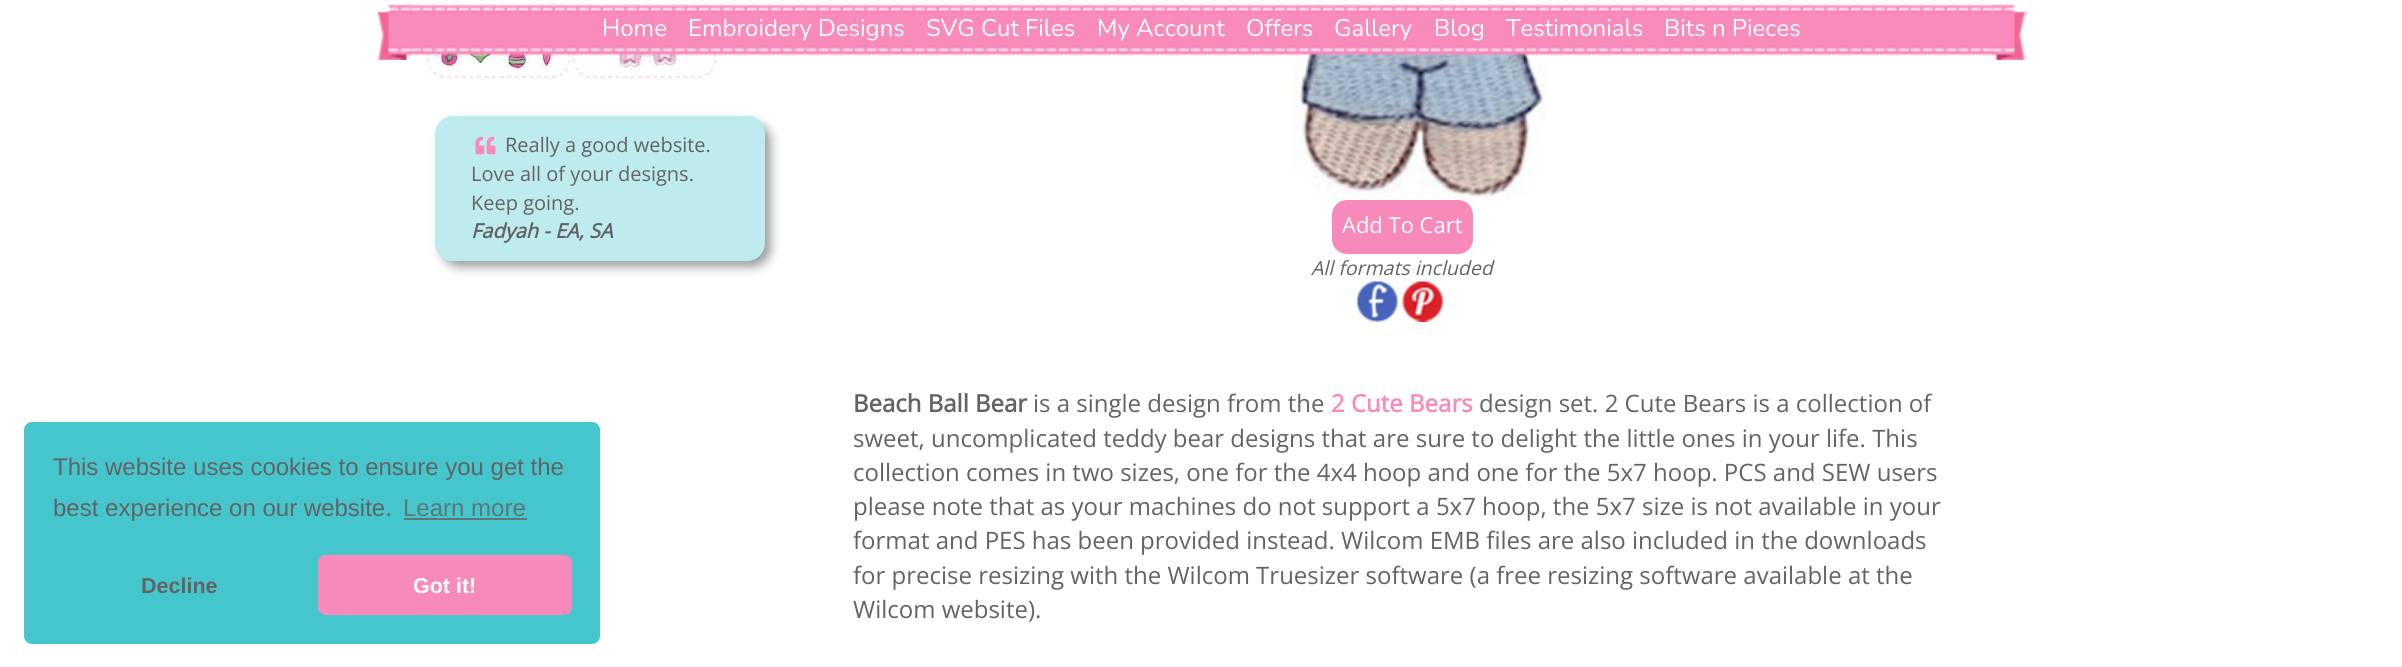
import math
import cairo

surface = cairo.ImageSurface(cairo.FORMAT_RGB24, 2402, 667)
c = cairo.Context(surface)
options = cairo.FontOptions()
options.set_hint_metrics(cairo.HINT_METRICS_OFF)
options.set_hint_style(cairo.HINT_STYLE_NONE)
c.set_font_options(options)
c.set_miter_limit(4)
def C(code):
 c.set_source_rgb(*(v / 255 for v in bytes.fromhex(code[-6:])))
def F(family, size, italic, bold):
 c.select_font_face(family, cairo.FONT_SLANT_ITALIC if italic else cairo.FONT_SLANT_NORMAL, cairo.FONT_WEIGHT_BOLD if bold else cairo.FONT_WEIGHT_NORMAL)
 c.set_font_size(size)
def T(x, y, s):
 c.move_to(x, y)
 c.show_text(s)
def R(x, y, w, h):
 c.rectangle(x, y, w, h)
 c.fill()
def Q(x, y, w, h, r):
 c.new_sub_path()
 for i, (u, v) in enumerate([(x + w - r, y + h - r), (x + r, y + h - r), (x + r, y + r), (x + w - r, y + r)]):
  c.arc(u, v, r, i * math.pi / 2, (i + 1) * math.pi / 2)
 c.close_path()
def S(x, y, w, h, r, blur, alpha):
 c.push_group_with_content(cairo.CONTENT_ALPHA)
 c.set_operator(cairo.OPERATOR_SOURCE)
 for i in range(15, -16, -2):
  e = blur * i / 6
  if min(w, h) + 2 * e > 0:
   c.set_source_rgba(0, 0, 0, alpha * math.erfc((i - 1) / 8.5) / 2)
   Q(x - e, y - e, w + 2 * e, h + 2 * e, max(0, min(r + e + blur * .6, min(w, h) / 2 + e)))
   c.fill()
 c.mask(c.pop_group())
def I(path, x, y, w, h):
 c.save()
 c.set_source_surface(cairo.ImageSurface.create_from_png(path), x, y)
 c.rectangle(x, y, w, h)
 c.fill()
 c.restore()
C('ffffff')
c.paint()
C('45c6cc')
Q(24,422,576,222,8)
c.fill()
F('Liberation Sans',24,0,0)
C('636363')
T(53,475,'This website uses cookies to ensure you get the')
T(53,516,'best experience on our website.')
C('5d7778')
T(403,516,'Learn more')
R(404,518,123,2)
F('Liberation Sans',21.5,0,1)
C('636363')
T(141,593,'Decline')
C('f78aba')
Q(318,555,254,60,8)
c.fill()
C('ffffff')
T(413,593,'Got it!')
c.new_path()
c.move_to(445.5,-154)
c.line_to(552,-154)
c.curve_to(561.5,-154,569,-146,569,-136.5)
c.line_to(569,60)
c.curve_to(569,69.5,561.5,77,552,77)
c.line_to(445.5,77)
c.curve_to(436,77,428,69.5,428,60)
c.line_to(428,-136.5)
c.curve_to(428,-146,436,-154,445.5,-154)
c.close_path()
C('ffd3e9')
c.set_line_width(1.5)
c.set_dash([4.5,3])
c.stroke()
I('4.png',429,4,140,65)
c.new_path()
c.move_to(591,-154)
c.line_to(697.5,-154)
c.curve_to(707,-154,715,-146,715,-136.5)
c.line_to(715,60)
c.curve_to(715,69.5,707,77,697.5,77)
c.line_to(591,77)
c.curve_to(581.5,77,574,69.5,574,60)
c.line_to(574,-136.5)
c.curve_to(574,-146,581.5,-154,591,-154)
c.close_path()
c.stroke()
I('5.png',574,4,140,65)
I('7.png',1290,4,304,195)
I('1.png',399,0,1605,56)
I('2.png',377,4,35,56)
F('Nunito',24,0,0)
C('ffffff')
T(602,36,'Home')
T(688,36,'Embroidery Designs')
T(926,36,'SVG Cut Files')
T(1097,36,'My Account')
T(1246,36,'Offers')
T(1334,36,'Gallery')
T(1434,36,'Blog')
T(1506,36,'Testimonials')
T(1664,36,'Bits n Pieces')
I('3.png',1991,4,36,56)
C('9da0a0')
S(441,122,330,145,18,5,1)
C('beebed')
Q(435,116,330,145,18)
c.fill()
I('6.png',475,136,21,19)
F('Open Sans',20,0,0)
C('636363')
T(505,152,'Really a good website.')
T(471,181,'Love all of your designs.')
T(471,210,'Keep going.')
F('Open Sans',20,1,1)
T(471,238,'Fadyah - EA, SA')
C('f78aba')
Q(1332,200,141,54,15)
c.fill()
F('Open Sans',22,0,0)
C('ffffff')
T(1342,233,'Add To Cart')
F('Open Sans',19.5,1,0)
C('636363')
T(1311,275,'All formats included')
I('8.png',1357,281,41,41)
I('9.png',1402,281,41,41)
F('Open Sans',24,0,1)
T(853,412,'Beach Ball Bear')
F('Open Sans',24,0,0)
T(1033,412,'is a single design from the')
F('Open Sans',24,0,1)
C('f78aba')
T(1331,412,'2 Cute Bears')
F('Open Sans',24,0,0)
C('636363')
T(1479,412,'design set. 2 Cute Bears is a collection of')
T(853,447,'sweet, uncomplicated teddy bear designs that are sure to delight the little ones in your life. This')
T(853,481,'collection comes in two sizes, one for the 4x4 hoop and one for the 5x7 hoop. PCS and SEW users')
T(853,515,'please note that as your machines do not support a 5x7 hoop, the 5x7 size is not available in your')
T(853,549,'format and PES has been provided instead. Wilcom EMB files are also included in the downloads')
T(853,584,'for precise resizing with the Wilcom Truesizer software (a free resizing software available at the')
T(853,618,'Wilcom website).')
C('f5f5f5')
R(2400,665,2,2)
surface.write_to_png('o.png')
